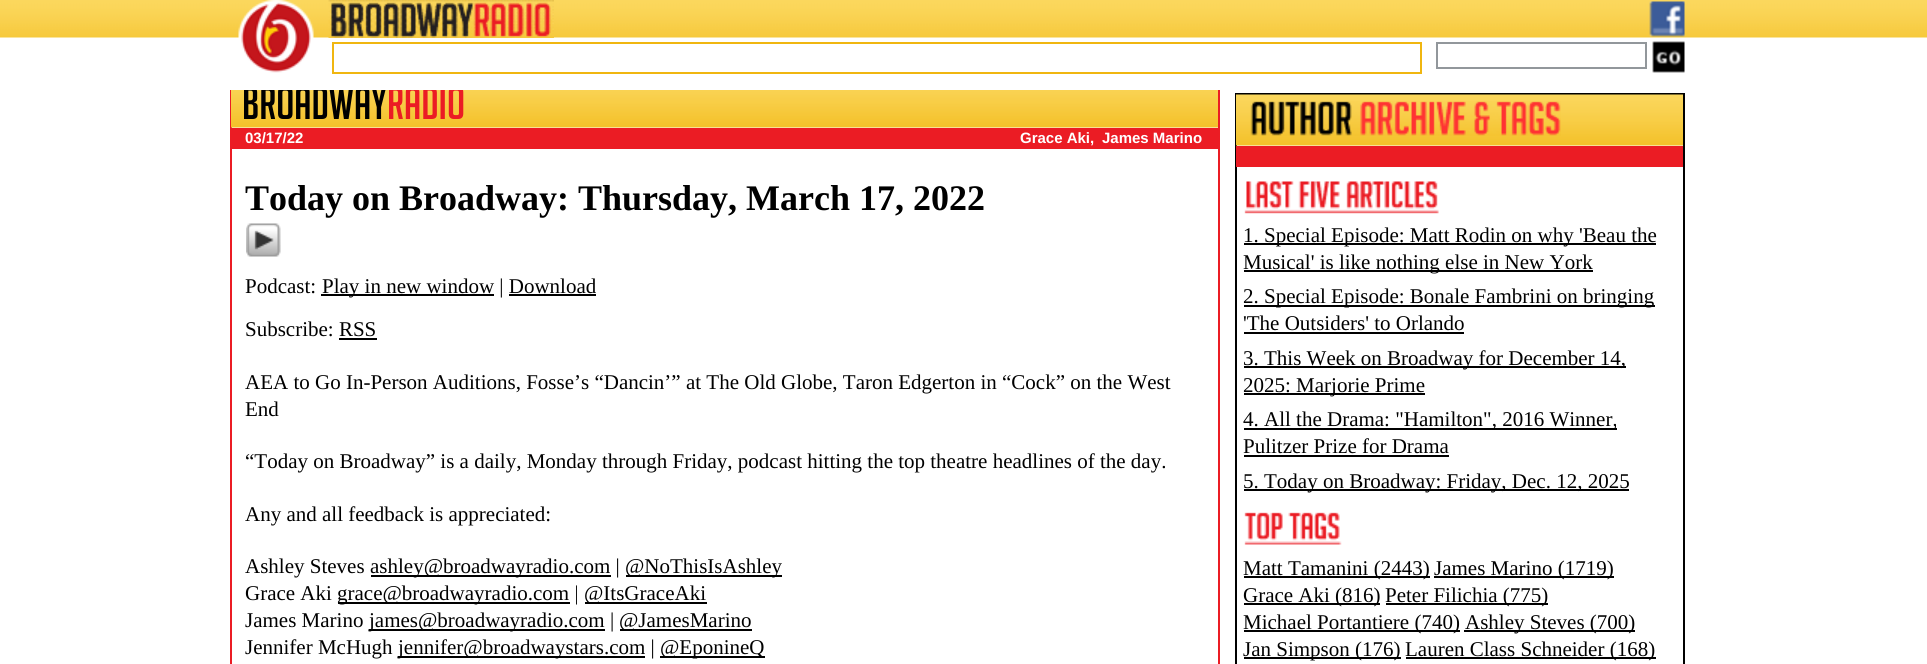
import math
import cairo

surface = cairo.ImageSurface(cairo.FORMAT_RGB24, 1927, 664)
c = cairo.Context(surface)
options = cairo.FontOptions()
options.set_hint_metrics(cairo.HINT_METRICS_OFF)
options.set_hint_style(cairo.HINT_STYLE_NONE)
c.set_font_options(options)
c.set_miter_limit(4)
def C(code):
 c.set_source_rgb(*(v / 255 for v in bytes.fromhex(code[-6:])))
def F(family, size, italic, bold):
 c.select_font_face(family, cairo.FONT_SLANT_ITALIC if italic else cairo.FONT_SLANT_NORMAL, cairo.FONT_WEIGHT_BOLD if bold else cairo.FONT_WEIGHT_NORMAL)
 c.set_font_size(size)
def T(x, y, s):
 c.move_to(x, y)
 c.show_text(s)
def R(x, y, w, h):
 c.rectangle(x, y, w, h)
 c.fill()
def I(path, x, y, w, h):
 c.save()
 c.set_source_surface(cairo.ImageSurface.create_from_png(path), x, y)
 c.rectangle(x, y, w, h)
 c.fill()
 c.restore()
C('ffffff')
c.paint()
c.rectangle(231,76,988,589)
C('eb1c24')
c.stroke()
I('6.png',231,90,987,38)
F('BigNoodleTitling',45,0,0)
C('000000')
T(242,119,'BROADWAY')
C('eb1c24')
T(387,119,'RADIO')
C('ffffff')
R(230,75,990,15)
I('1.png',0,0,1927,38)
I('2.png',238,0,76,73)
I('3.png',328,0,226,38)
I('4.png',1649,1,36,36)
c.rectangle(333,43,1088,30)
C('f0b610')
c.stroke()
c.rectangle(1437,43,209,25)
C('92979b')
c.stroke()
I('5.png',1652,41,33,32)
C('eb1c24')
R(232,128,986,21)
F('Liberation Sans',15,0,1)
C('ffffff')
T(245,143,'03/17/22')
T(1020,143,'Grace Aki,')
T(1102,143,'James Marino')
F('Liberation Serif',36,0,1)
C('000000')
T(245,210,'Today on Broadway: Thursday, March 17, 2022')
I('7.png',246,223,35,34)
F('Liberation Serif',21,0,0)
T(245,293,'Podcast:')
R(321,294,173,2)
T(322,293,'Play in new window | Download')
R(509,294,87,2)
T(245,336,'Subscribe: RSS')
R(339,338,38,2)
T(245,389,'AEA to Go In-Person Auditions, Fosse’s “Dancin’” at The Old Globe, Taron Edgerton in “Cock” on the West')
T(245,416,'End')
T(245,468,'“Today on Broadway” is a daily, Monday through Friday, podcast hitting the top theatre headlines of the day.')
T(245,521,'Any and all feedback is appreciated:')
T(245,573,'Ashley Steves')
R(371,575,240,2)
T(370,573,'ashley@broadwayradio.com |')
R(626,575,156,2)
T(625,573,'@NoThisIsAshley')
T(245,600,'Grace Aki')
R(338,602,232,2)
T(337,600,'grace@broadwayradio.com |')
R(585,602,122,2)
T(584,600,'@ItsGraceAki')
T(245,627,'James Marino')
R(369,629,236,2)
T(369,627,'james@broadwayradio.com |')
R(620,629,132,2)
T(619,627,'@JamesMarino')
T(245,654,'Jennifer McHugh')
R(398,656,247,2)
T(398,654,'jennifer@broadwaystars.com |')
R(660,656,105,2)
T(660,654,'@EponineQ')
c.rectangle(1236,94,448,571)
c.stroke()
I('8.png',1236,94,447,52)
I('9.png',1250,101,311,35)
C('eb1c24')
R(1236,146,447,21)
I('10.png',1244,181,195,33)
C('000000')
R(1244,243,412,2)
T(1243,242,'1. Special Episode: Matt Rodin on why \'Beau the')
R(1244,270,349,2)
T(1243,269,'Musical\' is like nothing else in New York')
R(1244,305,411,2)
T(1243,303,'2. Special Episode: Bonale Fambrini on bringing')
T(1243,330,'\'The Outsiders\' to Orlando')
R(1244,332,220,2)
R(1244,366,382,2)
T(1243,365,'3. This Week on Broadway for December 14,')
R(1244,393,181,2)
T(1243,392,'2025: Marjorie Prime')
R(1244,428,373,2)
T(1243,426,'4. All the Drama: "Hamilton", 2016 Winner,')
T(1243,453,'Pulitzer Prize for Drama')
R(1244,455,205,2)
R(1244,489,385,2)
T(1243,488,'5. Today on Broadway: Friday, Dec. 12, 2025')
I('11.png',1244,512,98,33)
R(1244,576,186,2)
T(1243,575,'Matt Tamanini (2443)')
R(1434,576,180,2)
T(1434,575,'James Marino (1719)')
R(1244,603,136,2)
T(1243,602,'Grace Aki (816)')
R(1386,603,162,2)
T(1385,602,'Peter Filichia (775)')
R(1244,630,216,2)
T(1243,629,'Michael Portantiere (740)')
R(1464,630,171,2)
T(1465,629,'Ashley Steves (700)')
R(1244,657,157,2)
T(1243,656,'Jan Simpson (176)')
R(1406,657,250,2)
T(1405,656,'Lauren Class Schneider (168)')
surface.write_to_png('o.png')
